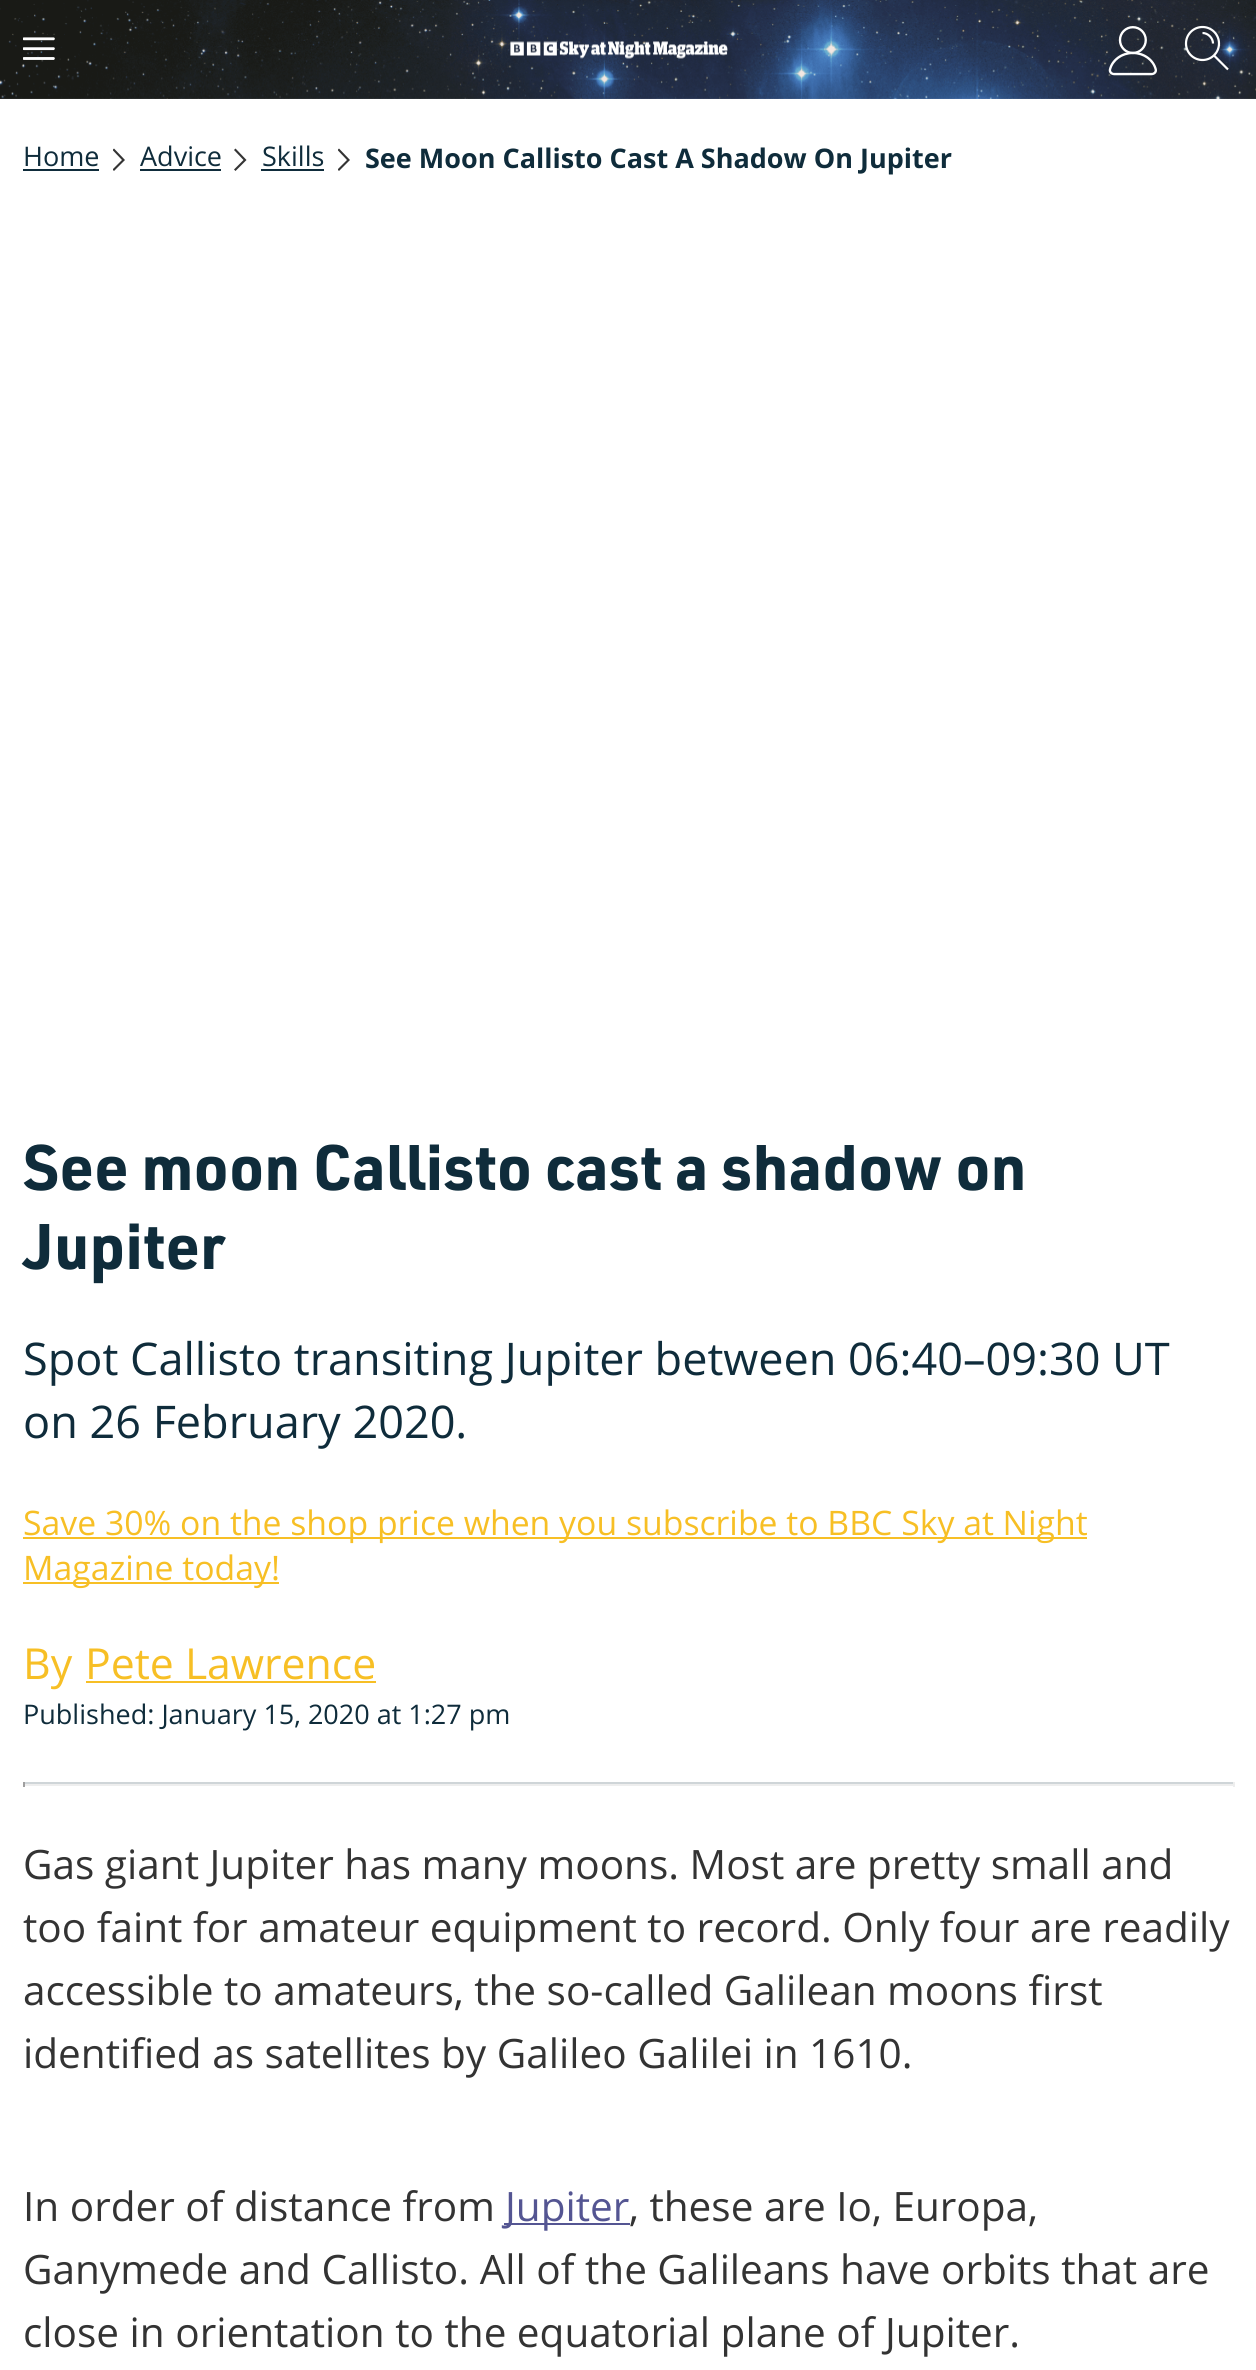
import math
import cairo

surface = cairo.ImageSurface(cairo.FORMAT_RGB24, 1256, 2370)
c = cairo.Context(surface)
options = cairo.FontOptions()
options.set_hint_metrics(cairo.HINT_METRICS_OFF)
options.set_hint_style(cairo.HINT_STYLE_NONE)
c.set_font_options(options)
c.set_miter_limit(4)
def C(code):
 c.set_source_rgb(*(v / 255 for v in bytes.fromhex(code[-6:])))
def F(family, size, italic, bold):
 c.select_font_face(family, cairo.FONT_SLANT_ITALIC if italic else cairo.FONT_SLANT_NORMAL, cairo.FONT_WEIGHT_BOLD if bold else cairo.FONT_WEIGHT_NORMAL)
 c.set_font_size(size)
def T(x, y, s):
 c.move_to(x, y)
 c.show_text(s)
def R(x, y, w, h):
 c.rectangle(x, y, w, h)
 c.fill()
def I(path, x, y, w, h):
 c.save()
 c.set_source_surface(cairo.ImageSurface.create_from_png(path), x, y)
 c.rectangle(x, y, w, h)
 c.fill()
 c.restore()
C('ffffff')
c.paint()
I('1.png',0,0,1256,99)
I('2.png',23,37,32,23)
I('3.png',510,41,218,18)
I('4.png',1108,26,49,50)
c.arc(1202.5,43.5,16.5,0,2 * math.pi)
C('ffffff')
c.set_line_width(2.2)
c.stroke()
c.new_path()
c.move_to(1213,43.5)
c.curve_to(1213,38,1208,33,1202.5,33)
c.stroke()
c.new_path()
c.move_to(1228,69.5)
c.line_to(1214,55.5)
c.set_line_join(cairo.LINE_JOIN_ROUND)
c.stroke()
F('Open Sans',27,0,0)
C('0f2c3b')
T(23,166,'Home')
R(23,169,76,2)
c.save()
c.rectangle(113,140,13,40)
c.clip()
C('343434')
c.set_fill_rule(cairo.FILL_RULE_EVEN_ODD)
c.new_path()
c.move_to(114,171)
c.line_to(125,160)
c.line_to(114,148.5)
c.line_to(112.5,150)
c.line_to(122,160)
c.line_to(112.5,169.5)
c.close_path()
c.fill()
c.restore()
T(140,166,'Advice')
R(140,169,81,2)
C('343434')
c.set_fill_rule(cairo.FILL_RULE_EVEN_ODD)
c.new_path()
c.move_to(235.5,171)
c.line_to(246.5,160)
c.line_to(235.5,148.5)
c.line_to(234,150)
c.line_to(243.5,160)
c.line_to(234,169.5)
c.close_path()
c.fill()
C('0f2c3b')
T(262,166,'Skills')
R(261,169,63,2)
c.save()
c.set_fill_rule(cairo.FILL_RULE_WINDING)
c.rectangle(338,140,13,40)
c.clip()
C('343434')
c.set_fill_rule(cairo.FILL_RULE_EVEN_ODD)
c.new_path()
c.move_to(339,171)
c.line_to(350,160)
c.line_to(339,148.5)
c.line_to(337.5,150)
c.line_to(347,160)
c.line_to(337.5,169.5)
c.close_path()
c.fill()
c.restore()
F('Open Sans',27,0,1)
T(365,168,'See Moon Callisto Cast A Shadow On Jupiter')
F('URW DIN',63,0,1)
T(23,1190,'See moon Callisto cast a shadow on')
T(23,1269,'Jupiter')
F('Open Sans',45,0,0)
T(23,1375,'Spot Callisto transiting Jupiter between 06:40–09:30 UT')
T(23,1438,'on 26 February 2020.')
C('f7bf25')
R(23,1537,1064,2)
F('Open Sans',33.75,0,0)
T(23,1535,'Save 30% on the shop price when you subscribe to BBC Sky at Night')
R(23,1582,256,2)
T(23,1580,'Magazine today!')
F('Open Sans',42.75,0,0)
T(23,1679,'By')
T(85,1679,'Pete Lawrence')
R(86,1681,290,2)
F('Open Sans',27,0,0)
C('0f2c3b')
T(23,1724,'Published: January 15, 2020 at 1:27 pm')
C('cfd5d8')
R(23,1782,1212,2)
C('eeeeee')
R(1233,1782,2,5)
R(23,1784,1212,2)
C('9f9f9f')
R(23,1782,2,5)
F('Open Sans',40.5,0,0)
C('333333')
T(23,1879,'Gas giant Jupiter has many moons. Most are pretty small and')
T(23,1942,'too faint for amateur equipment to record. Only four are readily')
T(23,2005,'accessible to amateurs, the so-called Galilean moons first')
T(23,2068,'identified as satellites by Galileo Galilei in 1610.')
T(23,2221,'In order of distance from')
C('545592')
R(504,2223,126,2)
T(505,2221,'Jupiter')
C('333333')
T(629,2221,', these are Io, Europa,')
T(23,2284,'Ganymede and Callisto. All of the Galileans have orbits that are')
T(23,2347,'close in orientation to the equatorial plane of Jupiter.')
surface.write_to_png('o.png')
